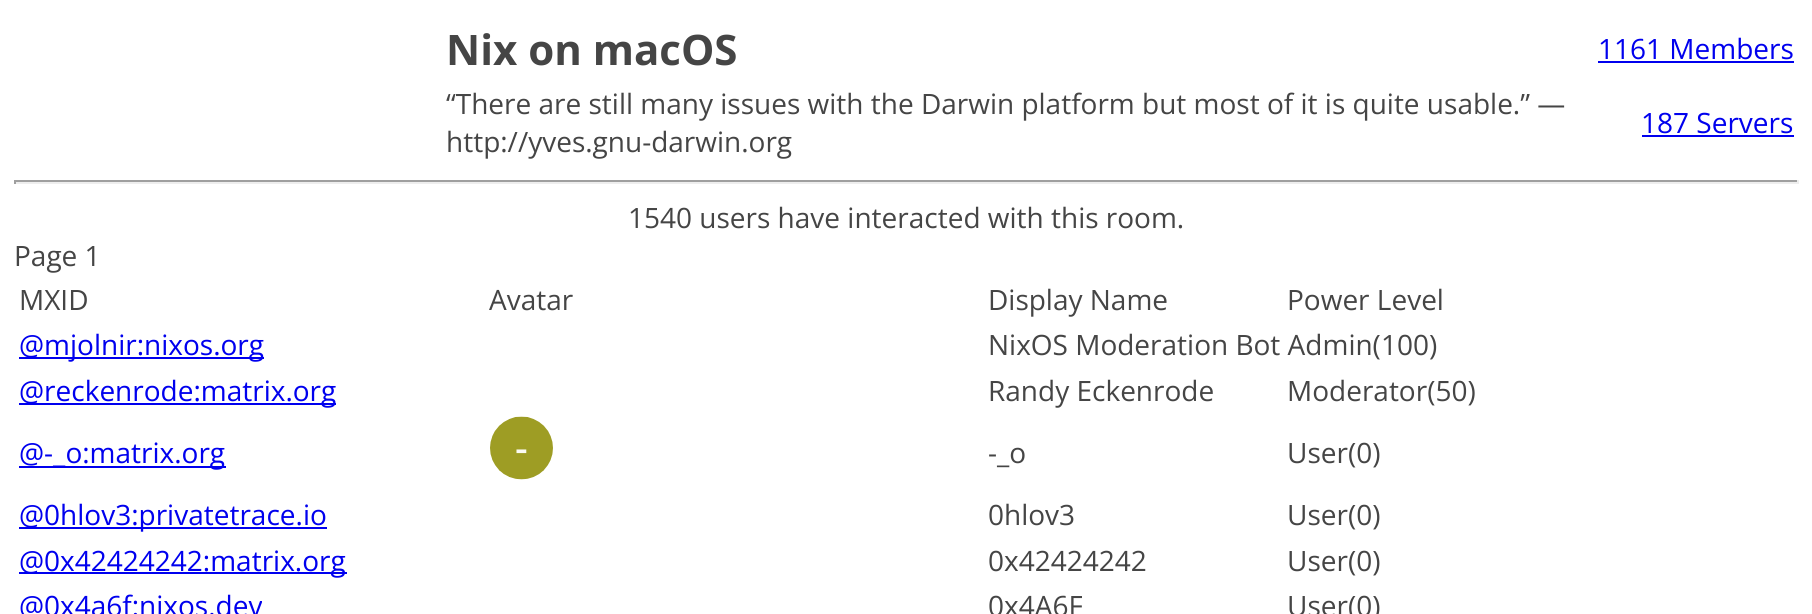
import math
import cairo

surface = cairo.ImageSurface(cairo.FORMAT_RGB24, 1812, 614)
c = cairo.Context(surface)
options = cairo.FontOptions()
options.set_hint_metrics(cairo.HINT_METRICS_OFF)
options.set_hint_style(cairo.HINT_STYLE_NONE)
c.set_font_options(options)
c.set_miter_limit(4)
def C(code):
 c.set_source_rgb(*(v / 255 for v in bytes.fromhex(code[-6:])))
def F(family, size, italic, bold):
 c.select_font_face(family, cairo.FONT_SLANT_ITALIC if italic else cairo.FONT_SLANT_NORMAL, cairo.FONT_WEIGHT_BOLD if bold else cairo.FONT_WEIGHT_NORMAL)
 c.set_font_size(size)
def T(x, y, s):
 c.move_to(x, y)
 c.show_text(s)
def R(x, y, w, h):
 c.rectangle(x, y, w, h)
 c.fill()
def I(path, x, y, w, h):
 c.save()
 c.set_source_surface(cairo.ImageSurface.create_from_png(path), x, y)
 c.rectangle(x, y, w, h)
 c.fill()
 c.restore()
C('ffffff')
c.paint()
F('Open Sans',42,0,1)
C('454545')
T(446,65,'Nix on macOS')
F('Open Sans',28,0,0)
C('0000ee')
T(1598,59,'1161 Members')
R(1598,61,196,2)
C('454545')
T(446,114,'“There are still many issues with the Darwin platform but most of it is quite usable.” —')
T(446,152,'http://yves.gnu-darwin.org')
C('0000ee')
T(1641,133,'187 Servers')
R(1642,135,152,2)
C('9f9f9f')
R(14,180,1785,2)
C('eeeeee')
R(1797,180,2,4)
R(14,182,1785,2)
C('9f9f9f')
R(14,180,2,4)
C('454545')
T(628,228,'1540 users have interacted with this room.')
T(14,266,'Page 1')
T(19,310,'MXID')
T(489,310,'Avatar')
T(988,310,'Display Name')
T(1287,310,'Power Level')
C('0000ee')
R(19,357,245,2)
T(19,355,'@mjolnir:nixos.org')
C('454545')
T(988,355,'NixOS Moderation Bot Admin(100)')
C('0000ee')
R(19,403,317,2)
T(19,401,'@reckenrode:matrix.org')
C('454545')
T(988,401,'Randy Eckenrode')
T(1287,401,'Moderator(50)')
C('0000ee')
R(19,466,207,2)
T(19,463,'@-_o:matrix.org')
I('1.png',490,416,63,64)
C('454545')
T(988,463,'-_o')
T(1287,463,'User(0)')
C('0000ee')
R(19,527,308,2)
T(19,525,'@0hlov3:privatetrace.io')
C('454545')
T(988,525,'0hlov3')
T(1287,525,'User(0)')
C('0000ee')
R(19,572,328,2)
T(19,571,'@0x42424242:matrix.org')
C('454545')
T(988,571,'0x42424242')
T(1287,571,'User(0)')
C('0000ee')
T(19,616,'@0x4a6f:nixos.dev')
C('454545')
T(988,616,'0x4A6F')
T(1287,616,'User(0)')
surface.write_to_png('o.png')
